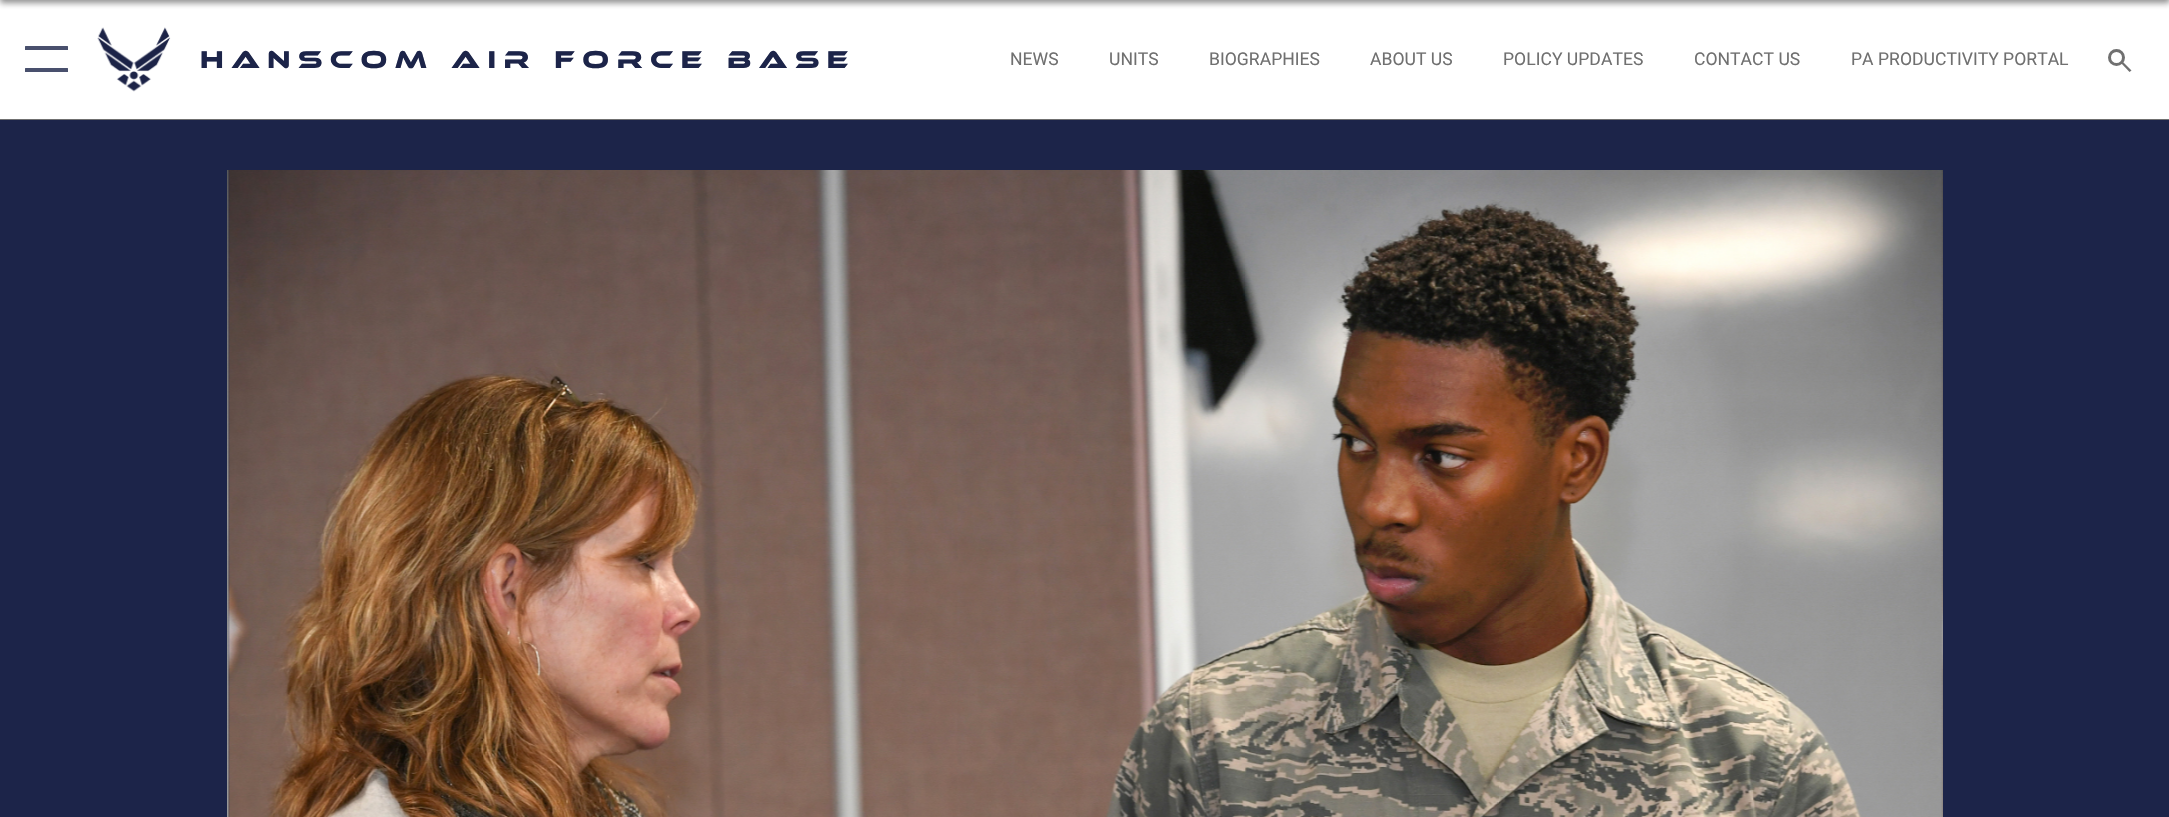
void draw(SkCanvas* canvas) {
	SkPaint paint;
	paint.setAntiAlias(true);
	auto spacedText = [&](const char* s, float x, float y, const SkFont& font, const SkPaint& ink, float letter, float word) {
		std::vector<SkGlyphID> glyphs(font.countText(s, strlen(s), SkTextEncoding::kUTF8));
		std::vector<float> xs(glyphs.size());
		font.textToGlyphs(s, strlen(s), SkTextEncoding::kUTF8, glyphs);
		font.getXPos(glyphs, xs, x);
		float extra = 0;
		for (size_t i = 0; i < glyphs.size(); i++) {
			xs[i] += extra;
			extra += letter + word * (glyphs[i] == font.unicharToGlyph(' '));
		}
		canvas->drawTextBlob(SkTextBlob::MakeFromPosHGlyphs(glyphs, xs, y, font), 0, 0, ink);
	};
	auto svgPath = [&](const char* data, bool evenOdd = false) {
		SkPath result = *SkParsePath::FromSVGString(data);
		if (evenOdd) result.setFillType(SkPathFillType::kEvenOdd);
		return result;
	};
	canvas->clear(0xffffffff);
	paint.setColor(0x801a1a1a);
	paint.setMaskFilter(SkMaskFilter::MakeBlur(kNormal_SkBlurStyle, 3));
	canvas->drawRect(SkRect::MakeXYWH(0, -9, 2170, 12), paint);
	paint.setMaskFilter(nullptr);
	paint.setColor(0xff707070);
	canvas->drawRect(SkRect::MakeXYWH(0, 119, 2169, 1), paint);
	paint.setColor(0xff49506d);
	canvas->drawRoundRect(SkRect::MakeXYWH(25, 46, 43, 4), 0.5, 0.5, paint);
	canvas->drawRoundRect(SkRect::MakeXYWH(25, 68, 43, 4), 0.5, 0.5, paint);
	canvas->drawImageRect(SkImages::DeferredFromEncodedData(SkData::MakeFromFileName("img1.png")), SkRect::MakeXYWH(97, 27, 74, 65), SkSamplingOptions());
	SkFont f1(fontMgr->matchFamilyStyle("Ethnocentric", SkFontStyle::Normal()), 25.2);
	f1.setSubpixel(true);
	paint.setColor(0xff1c2449);
	spacedText("Hanscom Air Force Base", 200, 68, f1, paint, 7.55, 0);
	SkFont f2(fontMgr->matchFamilyStyle("Roboto", SkFontStyle::Normal()), 17.6);
	f2.setSubpixel(true);
	paint.setColor(0xff707070);
	canvas->drawString("NEWS", 1010, 65, f2, paint);
	canvas->drawString("UNITS", 1109, 65, f2, paint);
	canvas->drawString("BIOGRAPHIES", 1209, 65, f2, paint);
	canvas->drawString("ABOUT US", 1370, 65, f2, paint);
	canvas->drawString("POLICY UPDATES", 1503, 65, f2, paint);
	canvas->drawString("CONTACT US", 1694, 65, f2, paint);
	canvas->drawString("PA PRODUCTIVITY PORTAL", 1851, 65, f2, paint);
	paint.setStroke(true);
	paint.setStrokeWidth(3);
	canvas->drawCircle(2116.5, 57.5, 7, paint);
	paint.setStroke(false);
	canvas->drawPath(svgPath("M2122.5 61.5L2131.5 70.5L2129.5 72L2121 63Z"), paint);
	paint.setColor(0xff1c2449);
	canvas->drawRect(SkRect::MakeXYWH(0, 120, 2169, 697), paint);
	canvas->drawImageRect(SkImages::DeferredFromEncodedData(SkData::MakeFromFileName("img2.png")), SkRect::MakeXYWH(227, 170, 2, 647), SkSamplingOptions());
	canvas->drawImageRect(SkImages::DeferredFromEncodedData(SkData::MakeFromFileName("img3.png")), SkRect::MakeXYWH(228, 170, 1715, 647), SkSamplingOptions());
	canvas->drawImageRect(SkImages::DeferredFromEncodedData(SkData::MakeFromFileName("img4.png")), SkRect::MakeXYWH(1941, 170, 2, 647), SkSamplingOptions());
}
